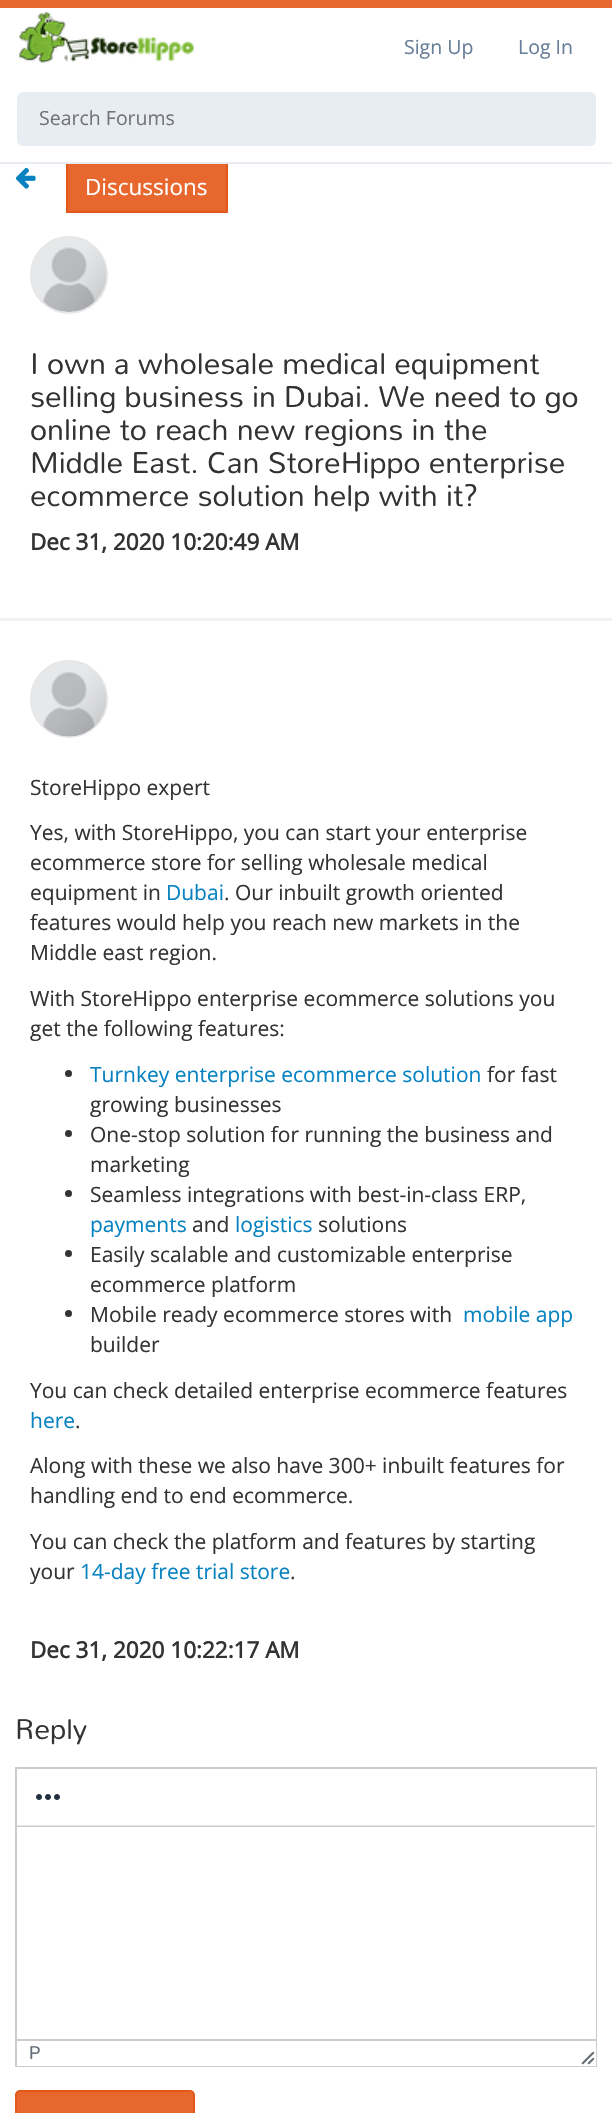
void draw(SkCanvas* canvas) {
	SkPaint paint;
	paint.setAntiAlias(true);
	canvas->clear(0xffffffff);
	paint.setColor(0xffe7672e);
	canvas->drawRect(SkRect::MakeXYWH(0, 0, 612, 8), paint);
	canvas->drawRect(SkRect::MakeXYWH(68, 164, 158, 47), paint);
	paint.setStroke(true);
	paint.setStrokeWidth(2);
	paint.setColor(0xffe2571a);
	canvas->drawRect(SkRect::MakeXYWH(67, 162, 160, 50), paint);
	paint.setStroke(false);
	paint.setColor(0xffffffff);
	canvas->drawRect(SkRect::MakeXYWH(66, 161, 162, 1), paint);
	paint.setColor(0xffe7edf3);
	canvas->drawRect(SkRect::MakeXYWH(0, 162, 612, 2), paint);
	canvas->drawImageRect(SkImages::DeferredFromEncodedData(SkData::MakeFromFileName("img1.png")), SkRect::MakeXYWH(19, 12, 176, 51), SkSamplingOptions());
	SkFont f1(fontMgr->matchFamilyStyle("Open Sans", SkFontStyle::Normal()), 19.5);
	f1.setSubpixel(true);
	paint.setColor(0xff667d99);
	canvas->drawString("Sign Up", 404, 54, f1, paint);
	canvas->drawString("Log In", 518, 54, f1, paint);
	paint.setColor(0xffe7edf3);
	canvas->drawRoundRect(SkRect::MakeXYWH(17, 92, 579, 54), 6, 6, paint);
	paint.setColor(0xff757575);
	canvas->drawString("Search Forums", 39, 125, f1, paint);
	canvas->drawImageRect(SkImages::DeferredFromEncodedData(SkData::MakeFromFileName("img2.png")), SkRect::MakeXYWH(15, 167, 21, 22), SkSamplingOptions());
	SkFont f2(fontMgr->matchFamilyStyle("Open Sans", SkFontStyle::Normal()), 22.5);
	f2.setSubpixel(true);
	paint.setColor(0xffffffff);
	canvas->drawString("Discussions", 85, 195, f2, paint);
	paint.setStroke(true);
	paint.setColor(0xffe6e6e6);
	canvas->drawCircle(69, 275, 38, paint);
	canvas->drawImageRect(SkImages::DeferredFromEncodedData(SkData::MakeFromFileName("img3.png")), SkRect::MakeXYWH(32, 238, 75, 74), SkSamplingOptions());
	SkFont f3(fontMgr->matchFamilyStyle("Mandali", SkFontStyle::Normal()), 30);
	f3.setSubpixel(true);
	paint.setStroke(false);
	paint.setColor(0xff333333);
	canvas->drawString("I own a wholesale medical equipment", 30, 374, f3, paint);
	canvas->drawString("selling business in Dubai. We need to go", 30, 407, f3, paint);
	canvas->drawString("online to reach new regions in the", 30, 440, f3, paint);
	canvas->drawString("Middle East. Can StoreHippo enterprise", 30, 473, f3, paint);
	canvas->drawString("ecommerce solution help with it?", 30, 506, f3, paint);
	SkFont f4(fontMgr->matchFamilyStyle("Open Sans", SkFontStyle::Bold()), 22.5);
	f4.setSubpixel(true);
	canvas->drawString("Dec 31, 2020 10:20:49 AM", 30, 550, f4, paint);
	paint.setColor(0xfff1f1f1);
	canvas->drawRect(SkRect::MakeXYWH(0, 618, 612, 3), paint);
	paint.setStroke(true);
	paint.setColor(0xffe6e6e6);
	canvas->drawCircle(69, 699, 38, paint);
	canvas->drawImageRect(SkImages::DeferredFromEncodedData(SkData::MakeFromFileName("img4.png")), SkRect::MakeXYWH(32, 662, 75, 75), SkSamplingOptions());
	SkFont f5(fontMgr->matchFamilyStyle("Open Sans", SkFontStyle::Normal()), 21);
	f5.setSubpixel(true);
	paint.setStroke(false);
	paint.setColor(0xff333333);
	canvas->drawString("StoreHippo expert", 30, 795, f5, paint);
	canvas->drawString("Yes, with StoreHippo, you can start your enterprise", 30, 840, f5, paint);
	canvas->drawString("ecommerce store for selling wholesale medical", 30, 870, f5, paint);
	canvas->drawString("equipment in", 30, 900, f5, paint);
	paint.setColor(0xff0782c1);
	canvas->drawString("Dubai", 166, 900, f5, paint);
	paint.setColor(0xff333333);
	canvas->drawString(". Our inbuilt growth oriented", 224, 900, f5, paint);
	canvas->drawString("features would help you reach new markets in the", 30, 930, f5, paint);
	canvas->drawString("Middle east region.", 30, 960, f5, paint);
	canvas->drawString("With StoreHippo enterprise ecommerce solutions you", 30, 1006, f5, paint);
	canvas->drawString("get the following features:", 30, 1036, f5, paint);
	canvas->drawCircle(68.5, 1073.5, 3.5, paint);
	paint.setColor(0xff0782c1);
	canvas->drawString("Turnkey enterprise ecommerce solution", 90, 1082, f5, paint);
	paint.setColor(0xff333333);
	canvas->drawString("for fast", 487, 1082, f5, paint);
	canvas->drawString("growing businesses", 90, 1112, f5, paint);
	canvas->drawCircle(68.5, 1133.5, 3.5, paint);
	canvas->drawString("One-stop solution for running the business and", 90, 1142, f5, paint);
	canvas->drawString("marketing", 90, 1172, f5, paint);
	canvas->drawCircle(68.5, 1193.5, 3.5, paint);
	canvas->drawString("Seamless integrations with best-in-class ERP,", 90, 1202, f5, paint);
	paint.setColor(0xff0782c1);
	canvas->drawString("payments", 90, 1232, f5, paint);
	paint.setColor(0xff333333);
	canvas->drawString("and", 192, 1232, f5, paint);
	paint.setColor(0xff0782c1);
	canvas->drawString("logistics", 235, 1232, f5, paint);
	paint.setColor(0xff333333);
	canvas->drawString("solutions", 318, 1232, f5, paint);
	canvas->drawCircle(68.5, 1253.5, 3.5, paint);
	canvas->drawString("Easily scalable and customizable enterprise", 90, 1262, f5, paint);
	canvas->drawString("ecommerce platform", 90, 1292, f5, paint);
	canvas->drawCircle(68.5, 1313.5, 3.5, paint);
	canvas->drawString("Mobile ready ecommerce stores with", 90, 1322, f5, paint);
	paint.setColor(0xff0782c1);
	canvas->drawString("mobile app", 463, 1322, f5, paint);
	paint.setColor(0xff333333);
	canvas->drawString("builder", 90, 1352, f5, paint);
	canvas->drawString("You can check detailed enterprise ecommerce features", 30, 1398, f5, paint);
	paint.setColor(0xff0782c1);
	canvas->drawString("here", 30, 1428, f5, paint);
	paint.setColor(0xff333333);
	canvas->drawString(".", 75, 1428, f5, paint);
	canvas->drawString("Along with these we also have 300+ inbuilt features for", 30, 1473, f5, paint);
	canvas->drawString("handling end to end ecommerce.", 30, 1503, f5, paint);
	canvas->drawString("You can check the platform and features by starting", 30, 1549, f5, paint);
	canvas->drawString("your", 30, 1579, f5, paint);
	paint.setColor(0xff0782c1);
	canvas->drawString("14-day free trial store", 80, 1579, f5, paint);
	paint.setColor(0xff333333);
	canvas->drawString(".", 290, 1579, f5, paint);
	canvas->drawString("Dec 31, 2020 10:22:17 AM", 30, 1658, f4, paint);
	SkFont f6(fontMgr->matchFamilyStyle("Mandali", SkFontStyle::Normal()), 28.5);
	f6.setSubpixel(true);
	canvas->drawString("Reply", 15, 1739, f6, paint);
	paint.setStroke(true);
	paint.setColor(0xffcccccc);
	canvas->drawRect(SkRect::MakeXYWH(16, 1768, 580, 298), paint);
	paint.setStroke(false);
	paint.setColor(0xffffffff);
	canvas->drawRect(SkRect::MakeXYWH(595, 1769, 1, 270), paint);
	canvas->drawImageRect(SkImages::DeferredFromEncodedData(SkData::MakeFromFileName("img5.png")), SkRect::MakeXYWH(17, 1825, 579, 2), SkSamplingOptions());
	canvas->drawImageRect(SkImages::DeferredFromEncodedData(SkData::MakeFromFileName("img6.png")), SkRect::MakeXYWH(36, 1794, 24, 6), SkSamplingOptions());
	canvas->drawRect(SkRect::MakeXYWH(17, 2041, 579, 25), paint);
	paint.setColor(0xffcccccc);
	canvas->drawRect(SkRect::MakeXYWH(17, 2039, 579, 2), paint);
	SkFont f7(fontMgr->matchFamilyStyle("Roboto", SkFontStyle::Normal()), 18);
	f7.setSubpixel(true);
	paint.setColor(0xff646d78);
	canvas->drawString("P", 29, 2059, f7, paint);
	canvas->drawImageRect(SkImages::DeferredFromEncodedData(SkData::MakeFromFileName("img7.png")), SkRect::MakeXYWH(581, 2051, 14, 14), SkSamplingOptions());
	paint.setColor(0xffe7672e);
	canvas->drawRoundRect(SkRect::MakeXYWH(16, 2091, 178, 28), 4, 4, paint);
	paint.setStroke(true);
	paint.setColor(0xffe2571a);
	canvas->drawRoundRect(SkRect::MakeXYWH(16, 2091, 178, 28), 4, 4, paint);
}
